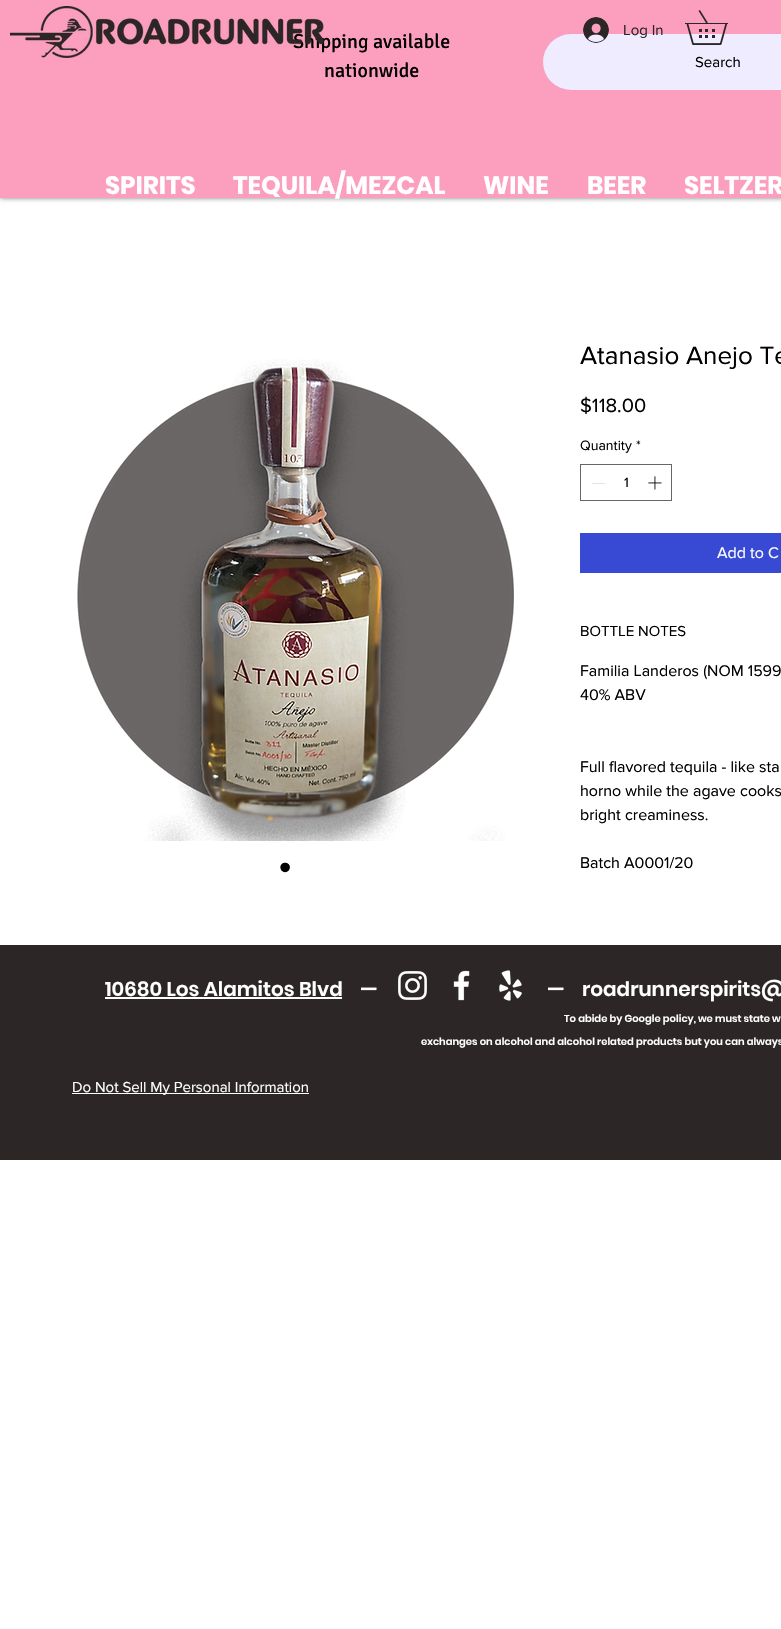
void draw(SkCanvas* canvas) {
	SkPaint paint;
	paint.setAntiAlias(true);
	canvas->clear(0xffffffff);
	paint.setColor(0x80000000);
	paint.setMaskFilter(SkMaskFilter::MakeBlur(kNormal_SkBlurStyle, 2.5));
	canvas->drawRect(SkRect::MakeXYWH(0, 0, 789, 198), paint);
	paint.setMaskFilter(nullptr);
	paint.setColor(0xfffc9fbf);
	canvas->drawRect(SkRect::MakeXYWH(0, 0, 781, 198), paint);
	SkFont f1(fontMgr->matchFamilyStyle("Signika", SkFontStyle::Normal()), 20);
	f1.setSubpixel(true);
	paint.setColor(0xff000000);
	canvas->drawString("Shipping available", 293, 48, f1, paint);
	canvas->drawImageRect(SkImages::DeferredFromEncodedData(SkData::MakeFromFileName("img1.png")), SkRect::MakeXYWH(10, 6, 315, 52), SkSamplingOptions());
	paint.setColor(0xffeeecfe);
	canvas->drawRoundRect(SkRect::MakeXYWH(543, 34, 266, 56), 28, 28, paint);
	canvas->drawImageRect(SkImages::DeferredFromEncodedData(SkData::MakeFromFileName("img2.png")), SkRect::MakeXYWH(583, 17, 26, 26), SkSamplingOptions());
	SkFont f2(fontMgr->matchFamilyStyle("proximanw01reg", SkFontStyle::Normal()), 15);
	f2.setSubpixel(true);
	paint.setColor(0xff2c2626);
	canvas->drawString("Log In", 623, 35, f2, paint);
	canvas->drawImageRect(SkImages::DeferredFromEncodedData(SkData::MakeFromFileName("img3.png")), SkRect::MakeXYWH(685, 10, 43, 35), SkSamplingOptions());
	paint.setColor(0xff000000);
	canvas->drawString("nationwide", 324, 77, f1, paint);
	canvas->drawString("Search", 695, 67, f2, paint);
	SkFont f3(fontMgr->matchFamilyStyle("Poppins", SkFontStyle::Bold()), 25);
	f3.setSubpixel(true);
	paint.setColor(0xffffffff);
	canvas->drawString("SPIRITS", 105, 194, f3, paint);
	canvas->drawString("TEQUILA/MEZCAL", 233, 194, f3, paint);
	canvas->drawString("WINE", 483, 194, f3, paint);
	canvas->drawString("BEER", 587, 194, f3, paint);
	canvas->drawString("SELTZER", 684, 194, f3, paint);
	canvas->drawImageRect(SkImages::DeferredFromEncodedData(SkData::MakeFromFileName("img4.png")), SkRect::MakeXYWH(77, 359, 437, 482), SkSamplingOptions());
	SkFont f4(fontMgr->matchFamilyStyle("Liberation Sans", SkFontStyle::Normal()), 35);
	f4.setSubpixel(true);
	paint.setColor(0xff000000);
	canvas->drawString("•", 279, 879, f4, paint);
	SkFont f5(fontMgr->matchFamilyStyle("proximanw01reg", SkFontStyle::Normal()), 26);
	f5.setSubpixel(true);
	canvas->drawString("Atanasio Anejo Te", 580, 364, f5, paint);
	SkFont f6(fontMgr->matchFamilyStyle("proximanw01reg", SkFontStyle::Normal()), 20);
	f6.setSubpixel(true);
	canvas->drawString("$118.00", 580, 412, f6, paint);
	SkFont f7(fontMgr->matchFamilyStyle("proximanw01reg", SkFontStyle::Normal()), 14);
	f7.setSubpixel(true);
	canvas->drawString("Quantity", 580, 450, f7, paint);
	canvas->drawString("*", 636, 450, f7, paint);
	paint.setStroke(true);
	paint.setStrokeWidth(1);
	paint.setColor(0xff666666);
	canvas->drawRect(SkRect::MakeXYWH(580.5, 464.5, 91, 36), paint);
	paint.setStroke(false);
	paint.setColor(0xffe3e3e3);
	canvas->drawRect(SkRect::MakeXYWH(592, 483, 13, 1), paint);
	paint.setColor(0xff000000);
	canvas->drawString("1", 624, 487, f7, paint);
	canvas->drawImageRect(SkImages::DeferredFromEncodedData(SkData::MakeFromFileName("img5.png")), SkRect::MakeXYWH(648, 476, 14, 14), SkSamplingOptions());
	paint.setColor(0xff384ad3);
	canvas->drawRect(SkRect::MakeXYWH(580, 533, 201, 40), paint);
	SkFont f8(fontMgr->matchFamilyStyle("proximanw01reg", SkFontStyle::Normal()), 16);
	f8.setSubpixel(true);
	paint.setColor(0xffffffff);
	canvas->drawString("Add to C", 717, 558, f8, paint);
	paint.setColor(0xff000000);
	canvas->drawString("BOTTLE NOTES", 580, 636, f2, paint);
	canvas->drawString("Familia Landeros (NOM 1599", 580, 676, f8, paint);
	canvas->drawString("40% ABV", 580, 700, f8, paint);
	canvas->drawString("Full flavored tequila - like sta", 580, 772, f8, paint);
	canvas->drawString("horno while the agave cooks", 580, 796, f8, paint);
	canvas->drawString("bright creaminess.", 580, 820, f8, paint);
	canvas->drawString("Batch A0001/20", 580, 868, f8, paint);
	paint.setColor(0xff2c2626);
	canvas->drawRect(SkRect::MakeXYWH(0, 945, 781, 215), paint);
	canvas->drawImageRect(SkImages::DeferredFromEncodedData(SkData::MakeFromFileName("img6.png")), SkRect::MakeXYWH(398, 971, 29, 29), SkSamplingOptions());
	canvas->drawImageRect(SkImages::DeferredFromEncodedData(SkData::MakeFromFileName("img7.png")), SkRect::MakeXYWH(453, 970, 17, 31), SkSamplingOptions());
	canvas->drawImageRect(SkImages::DeferredFromEncodedData(SkData::MakeFromFileName("img8.png")), SkRect::MakeXYWH(499, 970, 23, 31), SkSamplingOptions());
	SkFont f9(fontMgr->matchFamilyStyle("Poppins", SkFontStyle(600, SkFontStyle::kNormal_Width, SkFontStyle::kUpright_Slant)), 20);
	f9.setSubpixel(true);
	paint.setColor(0xffffffff);
	canvas->drawString("10680 Los Alamitos Blvd", 105, 996, f9, paint);
	paint.setColor(0xfffffffe);
	canvas->drawRect(SkRect::MakeXYWH(105, 997, 237, 2), paint);
	paint.setColor(0xffffffff);
	canvas->drawString("—", 360, 996, f9, paint);
	canvas->drawString("—", 547, 996, f9, paint);
	canvas->drawString("roadrunnerspirits@", 582, 996, f9, paint);
	SkFont f10(fontMgr->matchFamilyStyle("Poppins", SkFontStyle(600, SkFontStyle::kNormal_Width, SkFontStyle::kUpright_Slant)), 10);
	f10.setSubpixel(true);
	canvas->drawString("To abide by Google policy, we must state w", 564, 1022, f10, paint);
	canvas->drawString("exchanges on alcohol and alcohol related products but you can always", 421, 1045, f10, paint);
	paint.setColor(0xfffffffe);
	canvas->drawRect(SkRect::MakeXYWH(72, 1093, 237, 1), paint);
	paint.setColor(0xffffffff);
	canvas->drawString("Do Not Sell My Personal Information", 72, 1092, f2, paint);
}
